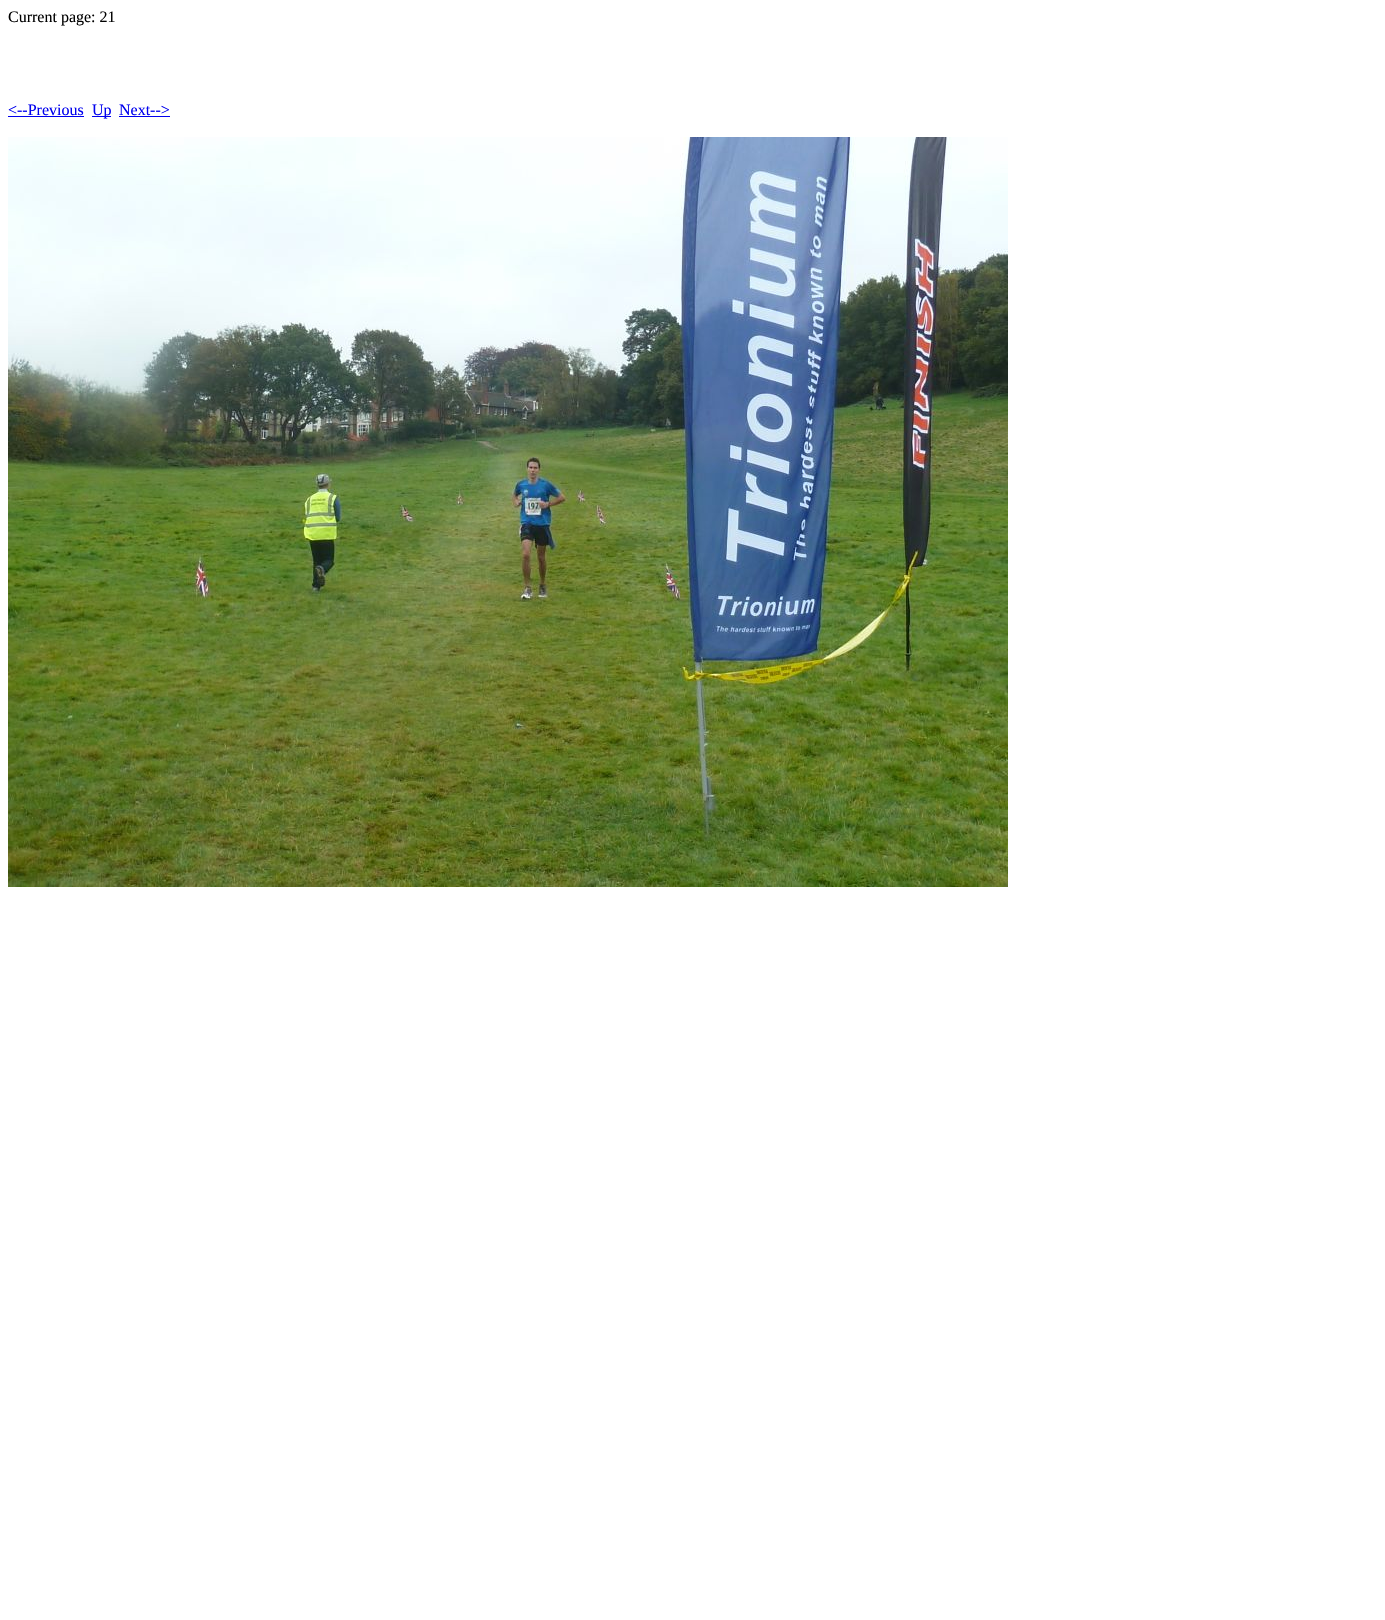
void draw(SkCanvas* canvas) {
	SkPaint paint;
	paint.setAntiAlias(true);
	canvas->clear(0xffffffff);
	SkFont f1(fontMgr->matchFamilyStyle("Liberation Serif", SkFontStyle::Normal()), 16);
	f1.setSubpixel(true);
	paint.setColor(0xff000000);
	canvas->drawString("Current page: 21", 8, 22, f1, paint);
	paint.setColor(0xff0000ee);
	canvas->drawString("<--Previous", 8, 115, f1, paint);
	canvas->drawRect(SkRect::MakeXYWH(8, 116, 76, 1), paint);
	canvas->drawRect(SkRect::MakeXYWH(92, 116, 19, 1), paint);
	canvas->drawString("Up", 92, 115, f1, paint);
	canvas->drawString("Next-->", 119, 115, f1, paint);
	canvas->drawRect(SkRect::MakeXYWH(119, 116, 51, 1), paint);
	canvas->drawImageRect(SkImages::DeferredFromEncodedData(SkData::MakeFromFileName("img1.png")), SkRect::MakeXYWH(8, 137, 1000, 750), SkSamplingOptions());
}
